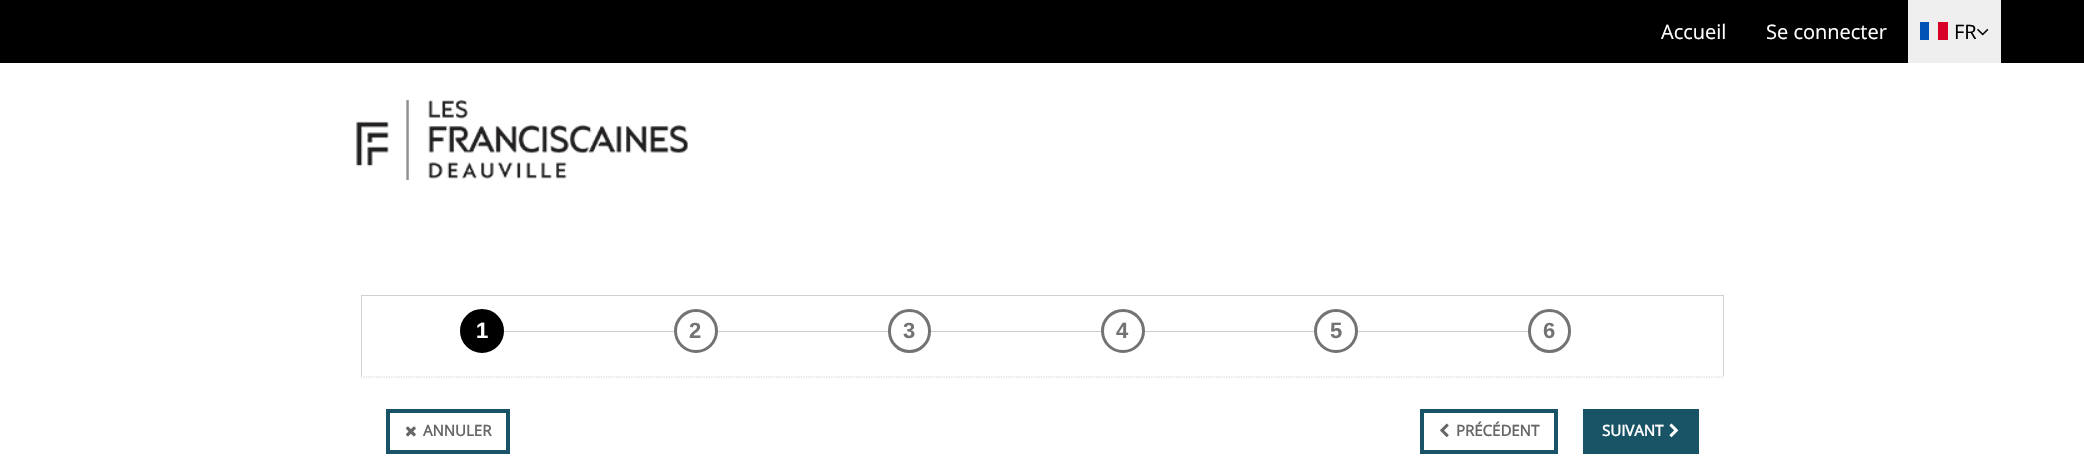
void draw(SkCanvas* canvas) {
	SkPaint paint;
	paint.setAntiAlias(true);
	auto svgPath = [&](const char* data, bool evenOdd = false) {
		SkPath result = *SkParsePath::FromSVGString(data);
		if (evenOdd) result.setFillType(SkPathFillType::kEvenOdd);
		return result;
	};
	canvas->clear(0xffffffff);
	paint.setColor(0xff000000);
	canvas->drawRect(SkRect::MakeXYWH(0, 0, 2084, 63), paint);
	SkFont f1(fontMgr->matchFamilyStyle("Open Sans", SkFontStyle::Normal()), 20);
	f1.setSubpixel(true);
	paint.setColor(0xffffffff);
	canvas->drawString("Accueil", 1661, 39, f1, paint);
	canvas->drawString("Se connecter", 1766, 39, f1, paint);
	paint.setColor(0xffefefef);
	canvas->drawRect(SkRect::MakeXYWH(1908, 0, 93, 63), paint);
	paint.setColor(0xff0052b4);
	canvas->drawRect(SkRect::MakeXYWH(1920, 22, 9, 18), paint);
	paint.setColor(0xffd80027);
	canvas->drawRect(SkRect::MakeXYWH(1938, 22, 10, 18), paint);
	paint.setColor(0xff000000);
	canvas->drawString("FR", 1954, 39, f1, paint);
	canvas->drawImageRect(SkImages::DeferredFromEncodedData(SkData::MakeFromFileName("img1.png")), SkRect::MakeXYWH(1977, 28, 12, 8), SkSamplingOptions());
	canvas->drawImageRect(SkImages::DeferredFromEncodedData(SkData::MakeFromFileName("img2.png")), SkRect::MakeXYWH(356, 100, 332, 80), SkSamplingOptions());
	paint.setStroke(true);
	paint.setStrokeWidth(1);
	paint.setColor(0xffd0d0d0);
	canvas->drawRect(SkRect::MakeXYWH(361.5, 295.5, 1362, 128), paint);
	paint.setStroke(false);
	paint.setColor(0xffcccccc);
	canvas->drawRect(SkRect::MakeXYWH(503, 331, 172, 1), paint);
	paint.setColor(0xff000000);
	canvas->drawCircle(482, 331, 20.5, paint);
	paint.setStroke(true);
	paint.setStrokeWidth(3);
	canvas->drawCircle(482, 331, 20.5, paint);
	SkFont f2(fontMgr->matchFamilyStyle("Liberation Sans", SkFontStyle::Bold()), 22);
	f2.setSubpixel(true);
	paint.setStroke(false);
	paint.setColor(0xffffffff);
	canvas->drawString("1", 476, 338, f2, paint);
	paint.setColor(0xffcccccc);
	canvas->drawRect(SkRect::MakeXYWH(717, 331, 172, 1), paint);
	paint.setColor(0xffffffff);
	canvas->drawCircle(696, 331, 20.5, paint);
	paint.setStroke(true);
	paint.setColor(0xff737373);
	canvas->drawCircle(696, 331, 20.5, paint);
	paint.setStroke(false);
	canvas->drawString("2", 689, 338, f2, paint);
	paint.setColor(0xffcccccc);
	canvas->drawRect(SkRect::MakeXYWH(930, 331, 172, 1), paint);
	paint.setColor(0xffffffff);
	canvas->drawRoundRect(SkRect::MakeXYWH(889.5, 310.5, 40, 41), 20, 20, paint);
	paint.setStroke(true);
	paint.setColor(0xff737373);
	canvas->drawRoundRect(SkRect::MakeXYWH(889.5, 310.5, 40, 41), 20, 20, paint);
	paint.setStroke(false);
	canvas->drawString("3", 903, 338, f2, paint);
	paint.setColor(0xffcccccc);
	canvas->drawRect(SkRect::MakeXYWH(1144, 331, 171, 1), paint);
	paint.setColor(0xffffffff);
	canvas->drawCircle(1123, 331, 20.5, paint);
	paint.setStroke(true);
	paint.setColor(0xff737373);
	canvas->drawCircle(1123, 331, 20.5, paint);
	paint.setStroke(false);
	canvas->drawString("4", 1116, 338, f2, paint);
	paint.setColor(0xffcccccc);
	canvas->drawRect(SkRect::MakeXYWH(1357, 331, 172, 1), paint);
	paint.setColor(0xffffffff);
	canvas->drawCircle(1336, 331, 20.5, paint);
	paint.setStroke(true);
	paint.setColor(0xff737373);
	canvas->drawCircle(1336, 331, 20.5, paint);
	paint.setStroke(false);
	canvas->drawString("5", 1330, 338, f2, paint);
	paint.setColor(0xffffffff);
	canvas->drawRoundRect(SkRect::MakeXYWH(1529.5, 310.5, 40, 41), 20, 20, paint);
	paint.setStroke(true);
	paint.setColor(0xff737373);
	canvas->drawRoundRect(SkRect::MakeXYWH(1529.5, 310.5, 40, 41), 20, 20, paint);
	paint.setStroke(false);
	canvas->drawString("6", 1543, 338, f2, paint);
	paint.setColor(0xffffffff);
	canvas->drawRect(SkRect::MakeXYWH(361, 376, 1363, 48), paint);
	paint.setStroke(true);
	paint.setStrokeWidth(1.2);
	paint.setColor(0xffd0d0d0);
	paint.setPathEffect(SkDashPathEffect::Make({{1.25f, 1.25f}}, 0));
	canvas->drawPath(svgPath("M361 377H1724"), paint);
	paint.setPathEffect(nullptr);
	paint.setStrokeWidth(4);
	paint.setColor(0xff185366);
	canvas->drawRect(SkRect::MakeXYWH(388, 411, 120, 41), paint);
	canvas->drawImageRect(SkImages::DeferredFromEncodedData(SkData::MakeFromFileName("img3.png")), SkRect::MakeXYWH(406, 426, 10, 11), SkSamplingOptions());
	SkFont f3(fontMgr->matchFamilyStyle("Open Sans", SkFontStyle::Bold()), 15);
	f3.setSubpixel(true);
	paint.setStroke(false);
	paint.setColor(0xff666666);
	canvas->drawString("ANNULER", 423, 436, f3, paint);
	paint.setStroke(true);
	paint.setColor(0xff185366);
	canvas->drawRect(SkRect::MakeXYWH(1422, 411, 134, 41), paint);
	canvas->drawImageRect(SkImages::DeferredFromEncodedData(SkData::MakeFromFileName("img4.png")), SkRect::MakeXYWH(1440, 423, 9, 14), SkSamplingOptions());
	paint.setStroke(false);
	paint.setColor(0xff666666);
	canvas->drawString("PRÉCÉDENT", 1456, 436, f3, paint);
	paint.setColor(0xff185366);
	canvas->drawRect(SkRect::MakeXYWH(1583, 409, 116, 45), paint);
	paint.setColor(0xffffffff);
	canvas->drawString("SUIVANT", 1602, 436, f3, paint);
	canvas->drawImageRect(SkImages::DeferredFromEncodedData(SkData::MakeFromFileName("img5.png")), SkRect::MakeXYWH(1669, 423, 10, 15), SkSamplingOptions());
}
